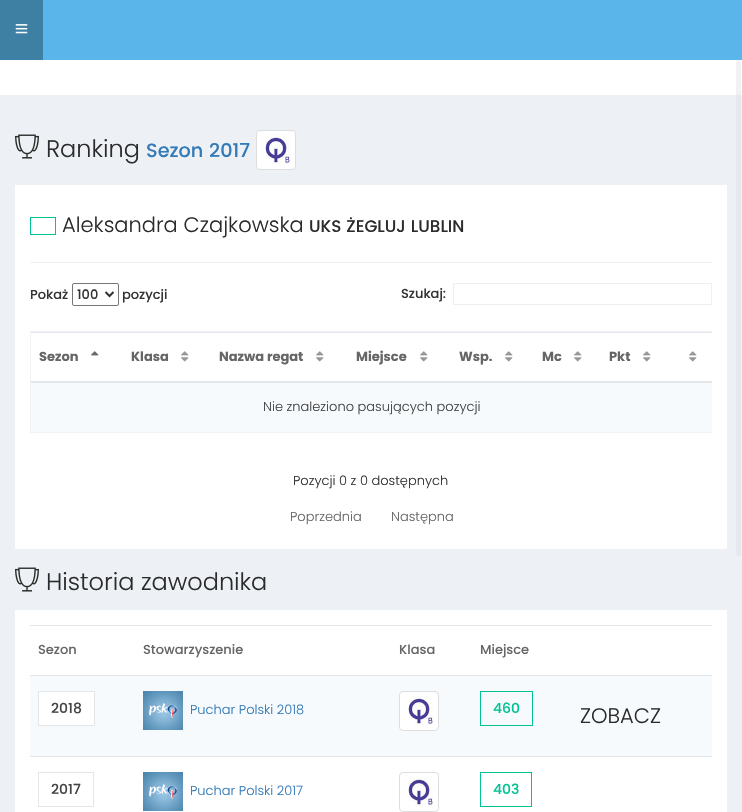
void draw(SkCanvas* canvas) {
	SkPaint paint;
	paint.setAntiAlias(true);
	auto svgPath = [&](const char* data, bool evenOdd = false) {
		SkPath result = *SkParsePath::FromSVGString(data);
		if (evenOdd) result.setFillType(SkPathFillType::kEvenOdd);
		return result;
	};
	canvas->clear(0xffedf1f5);
	paint.setColor(0xff59b5ea);
	canvas->drawRect(SkRect::MakeXYWH(43, 0, 699, 60), paint);
	paint.setColor(0xff3e7fa4);
	canvas->drawRect(SkRect::MakeXYWH(0, 0, 43, 60), paint);
	canvas->drawImageRect(SkImages::DeferredFromEncodedData(SkData::MakeFromFileName("img1.png")), SkRect::MakeXYWH(15, 24, 13, 10), SkSamplingOptions());
	paint.setColor(0xffffffff);
	canvas->drawRect(SkRect::MakeXYWH(0, 60, 742, 35), paint);
	canvas->drawImageRect(SkImages::DeferredFromEncodedData(SkData::MakeFromFileName("img2.png")), SkRect::MakeXYWH(15, 134, 24, 25), SkSamplingOptions());
	SkFont f1(fontMgr->matchFamilyStyle("Poppins", SkFontStyle(300, SkFontStyle::kNormal_Width, SkFontStyle::kUpright_Slant)), 24);
	f1.setSubpixel(true);
	paint.setColor(0xff2b2b2b);
	canvas->drawString("Ranking", 46, 157, f1, paint);
	SkFont f2(fontMgr->matchFamilyStyle("Poppins", SkFontStyle(500, SkFontStyle::kNormal_Width, SkFontStyle::kUpright_Slant)), 19.25);
	f2.setSubpixel(true);
	paint.setColor(0xff337ab7);
	canvas->drawString("Sezon 2017", 146, 157, f2, paint);
	paint.setColor(0xffffffff);
	canvas->drawRoundRect(SkRect::MakeXYWH(256.5, 130.5, 39, 39), 3.5, 3.5, paint);
	paint.setStroke(true);
	paint.setStrokeWidth(1);
	paint.setColor(0xffdddddd);
	canvas->drawRoundRect(SkRect::MakeXYWH(256.5, 130.5, 39, 39), 3.5, 3.5, paint);
	canvas->drawImageRect(SkImages::DeferredFromEncodedData(SkData::MakeFromFileName("img3.png")), SkRect::MakeXYWH(265, 135, 25, 29), SkSamplingOptions());
	paint.setStroke(false);
	paint.setColor(0xffffffff);
	canvas->drawRect(SkRect::MakeXYWH(15, 185, 712, 364), paint);
	paint.setStroke(true);
	paint.setColor(0xff00c292);
	canvas->drawRect(SkRect::MakeXYWH(30.5, 217.5, 25, 17), paint);
	SkFont f3(fontMgr->matchFamilyStyle("Poppins", SkFontStyle(300, SkFontStyle::kNormal_Width, SkFontStyle::kUpright_Slant)), 21);
	f3.setSubpixel(true);
	paint.setStroke(false);
	paint.setColor(0xff2b2b2b);
	canvas->drawString("Aleksandra Czajkowska", 62, 232, f3, paint);
	SkFont f4(fontMgr->matchFamilyStyle("Poppins", SkFontStyle(500, SkFontStyle::kNormal_Width, SkFontStyle::kUpright_Slant)), 16.75);
	f4.setSubpixel(true);
	canvas->drawString("UKS ŻEGLUJ LUBLIN", 309, 232, f4, paint);
	paint.setColor(0xffedeff0);
	canvas->drawRect(SkRect::MakeXYWH(30, 262, 682, 1), paint);
	SkFont f5(fontMgr->matchFamilyStyle("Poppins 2", SkFontStyle(500, SkFontStyle::kNormal_Width, SkFontStyle::kUpright_Slant)), 13);
	f5.setSubpixel(true);
	paint.setColor(0xff333333);
	canvas->drawString("Pokaż", 30, 299, f5, paint);
	paint.setStroke(true);
	paint.setColor(0xff767676);
	canvas->drawRoundRect(SkRect::MakeXYWH(72.5, 283.5, 46, 22), 1.5, 1.5, paint);
	paint.setStrokeWidth(2);
	paint.setColor(0xff333333);
	canvas->drawPath(svgPath("M105.5 292L109.5 296L113.5 292"), paint);
	paint.setStroke(false);
	canvas->drawString("100", 77, 299, f5, paint);
	canvas->drawString("pozycji", 122, 299, f5, paint);
	canvas->drawString("Szukaj:", 401, 298, f5, paint);
	paint.setStroke(true);
	paint.setStrokeWidth(1);
	paint.setColor(0xffedeff0);
	canvas->drawRect(SkRect::MakeXYWH(453.5, 283.5, 258, 21), paint);
	canvas->save();
	canvas->clipRect(SkRect::MakeXYWH(30, 283, 682, 251));
	paint.setColor(0xfff1f2f7);
	canvas->drawRect(SkRect::MakeXYWH(30.5, 331.5, 682, 101), paint);
	canvas->restore();
	paint.setStroke(false);
	paint.setColor(0xffe4e7ea);
	canvas->drawRect(SkRect::MakeXYWH(31, 332, 681, 1), paint);
	canvas->drawRect(SkRect::MakeXYWH(31, 381, 681, 2), paint);
	SkFont f6(fontMgr->matchFamilyStyle("Poppins", SkFontStyle::Bold()), 13);
	f6.setSubpixel(true);
	paint.setColor(0xff666666);
	canvas->drawString("Sezon", 39, 361, f6, paint);
	canvas->drawImageRect(SkImages::DeferredFromEncodedData(SkData::MakeFromFileName("img4.png")), SkRect::MakeXYWH(91, 351, 8, 5), SkSamplingOptions());
	canvas->drawString("Klasa", 131, 361, f6, paint);
	canvas->drawImageRect(SkImages::DeferredFromEncodedData(SkData::MakeFromFileName("img5.png")), SkRect::MakeXYWH(181, 351, 8, 11), SkSamplingOptions());
	canvas->drawString("Nazwa regat", 219, 361, f6, paint);
	canvas->drawImageRect(SkImages::DeferredFromEncodedData(SkData::MakeFromFileName("img5.png")), SkRect::MakeXYWH(316, 351, 8, 11), SkSamplingOptions());
	canvas->drawString("Miejsce", 356, 361, f6, paint);
	canvas->drawImageRect(SkImages::DeferredFromEncodedData(SkData::MakeFromFileName("img5.png")), SkRect::MakeXYWH(420, 351, 8, 11), SkSamplingOptions());
	canvas->drawString("Wsp.", 459, 361, f6, paint);
	canvas->drawImageRect(SkImages::DeferredFromEncodedData(SkData::MakeFromFileName("img5.png")), SkRect::MakeXYWH(505, 351, 8, 11), SkSamplingOptions());
	canvas->drawString("Mc", 542, 361, f6, paint);
	canvas->drawImageRect(SkImages::DeferredFromEncodedData(SkData::MakeFromFileName("img5.png")), SkRect::MakeXYWH(574, 351, 8, 11), SkSamplingOptions());
	canvas->drawString("Pkt", 609, 361, f6, paint);
	canvas->drawImageRect(SkImages::DeferredFromEncodedData(SkData::MakeFromFileName("img5.png")), SkRect::MakeXYWH(643, 351, 8, 11), SkSamplingOptions());
	canvas->drawImageRect(SkImages::DeferredFromEncodedData(SkData::MakeFromFileName("img5.png")), SkRect::MakeXYWH(689, 351, 8, 11), SkSamplingOptions());
	paint.setColor(0xfff7fafc);
	canvas->drawRect(SkRect::MakeXYWH(31, 383, 681, 49), paint);
	SkFont f7(fontMgr->matchFamilyStyle("Poppins", SkFontStyle(300, SkFontStyle::kNormal_Width, SkFontStyle::kUpright_Slant)), 13);
	f7.setSubpixel(true);
	paint.setColor(0xff444444);
	canvas->drawString("Nie znaleziono pasujących pozycji", 263, 411, f7, paint);
	paint.setColor(0xff333333);
	canvas->drawString("Pozycji 0 z 0 dostępnych", 293, 485, f7, paint);
	paint.setColor(0xff666666);
	canvas->drawString("Poprzednia", 290, 521, f7, paint);
	canvas->drawString("Następna", 391, 521, f7, paint);
	canvas->drawImageRect(SkImages::DeferredFromEncodedData(SkData::MakeFromFileName("img2.png")), SkRect::MakeXYWH(15, 567, 24, 25), SkSamplingOptions());
	paint.setColor(0xff2b2b2b);
	canvas->drawString("Historia zawodnika", 46, 590, f1, paint);
	paint.setColor(0xffffffff);
	canvas->drawRect(SkRect::MakeXYWH(15, 610, 712, 202), paint);
	paint.setColor(0xffe4e7ea);
	canvas->drawRect(SkRect::MakeXYWH(30, 625, 682, 1), paint);
	paint.setColor(0xff666666);
	canvas->drawString("Sezon", 38, 654, f5, paint);
	canvas->drawString("Stowarzyszenie", 143, 654, f5, paint);
	canvas->drawString("Klasa", 399, 654, f5, paint);
	canvas->drawString("Miejsce", 480, 654, f5, paint);
	paint.setColor(0xfff7fafc);
	canvas->drawRect(SkRect::MakeXYWH(30, 676, 682, 80), paint);
	paint.setColor(0xffffffff);
	canvas->drawRect(SkRect::MakeXYWH(38.5, 691.5, 56, 34), paint);
	paint.setStroke(true);
	paint.setColor(0xffe4e7ea);
	canvas->drawRect(SkRect::MakeXYWH(38.5, 691.5, 56, 34), paint);
	SkFont f8(fontMgr->matchFamilyStyle("Poppins", SkFontStyle(500, SkFontStyle::kNormal_Width, SkFontStyle::kUpright_Slant)), 14);
	f8.setSubpixel(true);
	paint.setStroke(false);
	paint.setColor(0xff444444);
	canvas->drawString("2018", 51, 713, f8, paint);
	canvas->drawImageRect(SkImages::DeferredFromEncodedData(SkData::MakeFromFileName("img6.png")), SkRect::MakeXYWH(143, 691, 40, 39), SkSamplingOptions());
	paint.setColor(0xff337ab7);
	canvas->drawString("Puchar Polski 2018", 190, 714, f7, paint);
	paint.setColor(0xffffffff);
	canvas->drawRoundRect(SkRect::MakeXYWH(399.5, 691.5, 39, 39), 3.5, 3.5, paint);
	paint.setStroke(true);
	paint.setColor(0xffdddddd);
	canvas->drawRoundRect(SkRect::MakeXYWH(399.5, 691.5, 39, 39), 3.5, 3.5, paint);
	canvas->drawImageRect(SkImages::DeferredFromEncodedData(SkData::MakeFromFileName("img7.png")), SkRect::MakeXYWH(408, 696, 25, 29), SkSamplingOptions());
	paint.setColor(0xff00c292);
	canvas->drawRect(SkRect::MakeXYWH(480.5, 691.5, 52, 34), paint);
	paint.setStroke(false);
	canvas->drawString("460", 493, 713, f8, paint);
	paint.setColor(0xffe4e7ea);
	canvas->drawRect(SkRect::MakeXYWH(30, 675, 682, 1), paint);
	paint.setColor(0xff2b2b2b);
	canvas->drawString("ZOBACZ", 580, 723, f3, paint);
	paint.setColor(0xffe4e7ea);
	canvas->drawRect(SkRect::MakeXYWH(30, 756, 682, 1), paint);
	paint.setStroke(true);
	canvas->drawRect(SkRect::MakeXYWH(38.5, 772.5, 55, 34), paint);
	paint.setStroke(false);
	paint.setColor(0xff444444);
	canvas->drawString("2017", 51, 794, f8, paint);
	canvas->drawImageRect(SkImages::DeferredFromEncodedData(SkData::MakeFromFileName("img8.png")), SkRect::MakeXYWH(143, 772, 40, 39), SkSamplingOptions());
	paint.setColor(0xff337ab7);
	canvas->drawString("Puchar Polski 2017", 190, 795, f7, paint);
	paint.setStroke(true);
	paint.setColor(0xffdddddd);
	canvas->drawRoundRect(SkRect::MakeXYWH(399.5, 772.5, 39, 39), 3.5, 3.5, paint);
	canvas->drawImageRect(SkImages::DeferredFromEncodedData(SkData::MakeFromFileName("img7.png")), SkRect::MakeXYWH(408, 777, 25, 29), SkSamplingOptions());
	paint.setColor(0xff00c292);
	canvas->drawRect(SkRect::MakeXYWH(480.5, 772.5, 51, 34), paint);
	paint.setStroke(false);
	canvas->drawString("403", 493, 794, f8, paint);
	paint.setColor(0x66dcdcdc);
	canvas->drawRoundRect(SkRect::MakeXYWH(736, 60, 5, 496), 2.5, 2.5, paint);
}
